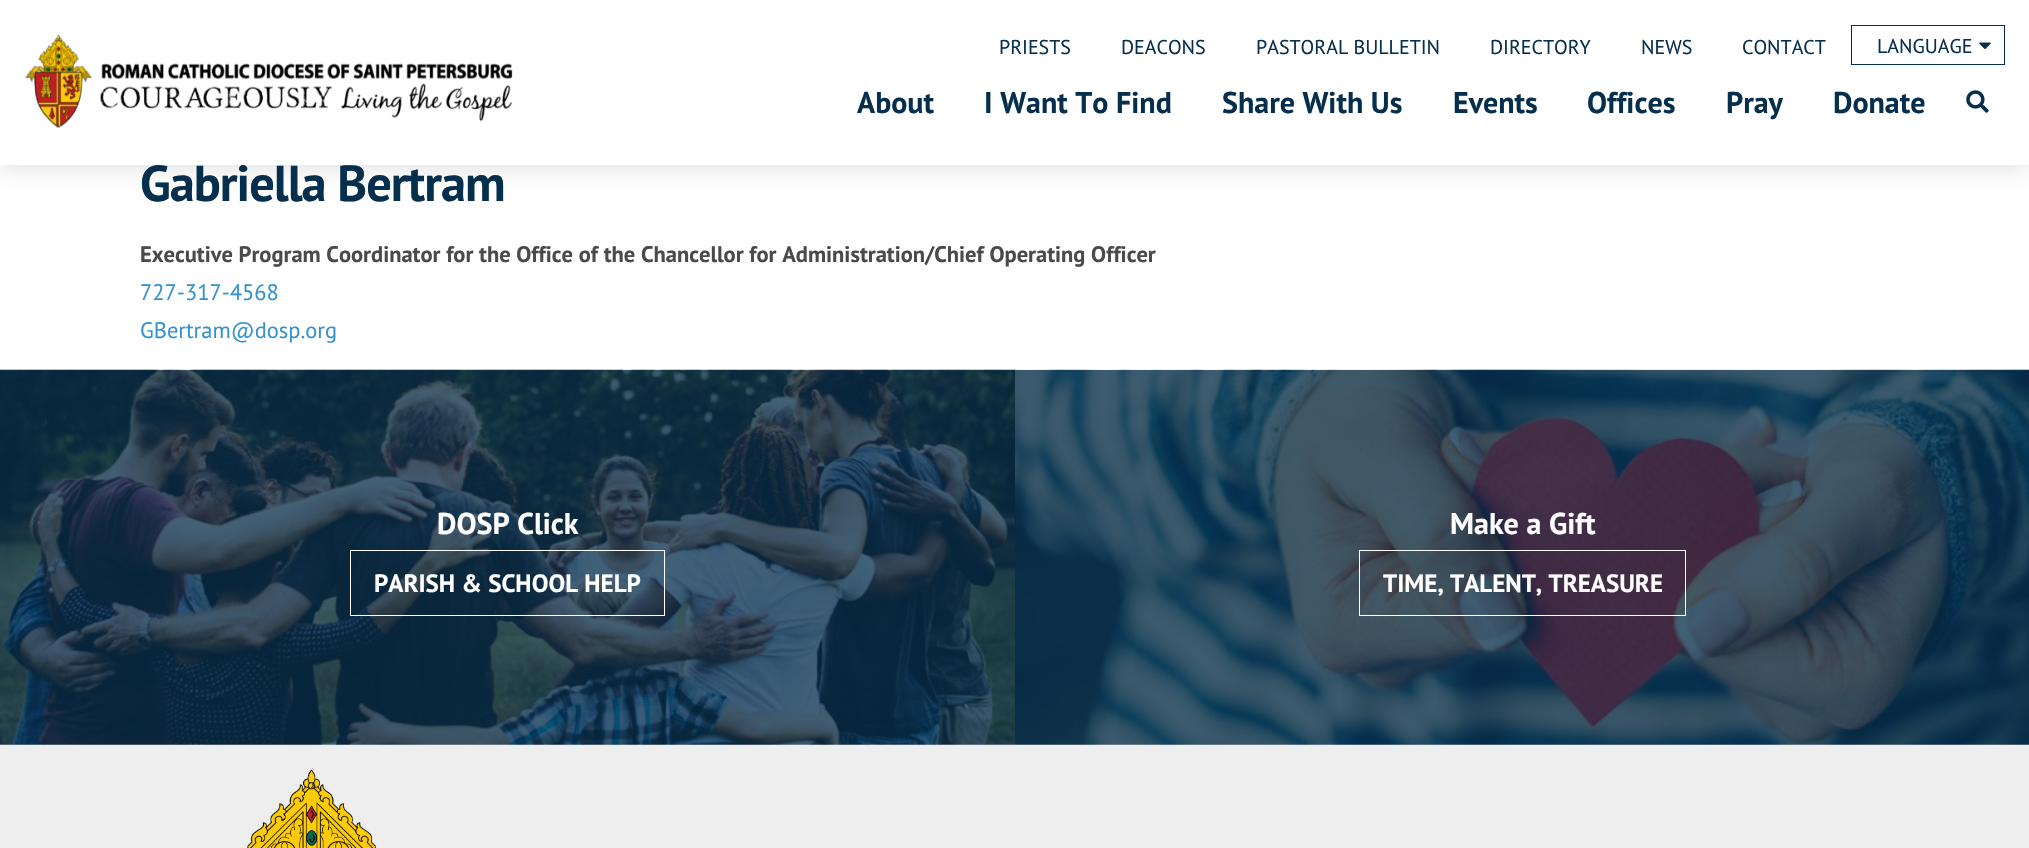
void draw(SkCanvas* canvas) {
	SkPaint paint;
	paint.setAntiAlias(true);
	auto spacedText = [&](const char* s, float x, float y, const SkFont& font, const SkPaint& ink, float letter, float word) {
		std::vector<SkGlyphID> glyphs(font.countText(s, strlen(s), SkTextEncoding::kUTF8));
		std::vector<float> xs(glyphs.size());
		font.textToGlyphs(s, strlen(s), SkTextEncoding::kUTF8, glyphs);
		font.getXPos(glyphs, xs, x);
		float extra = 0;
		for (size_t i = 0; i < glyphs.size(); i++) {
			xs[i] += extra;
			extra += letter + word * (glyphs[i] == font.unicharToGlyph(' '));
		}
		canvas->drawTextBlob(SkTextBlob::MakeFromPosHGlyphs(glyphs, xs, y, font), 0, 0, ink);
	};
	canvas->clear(0xffffffff);
	paint.setColor(0x26000000);
	paint.setMaskFilter(SkMaskFilter::MakeBlur(kNormal_SkBlurStyle, 12.5));
	canvas->drawRect(SkRect::MakeXYWH(0, 0, 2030, 165), paint);
	paint.setMaskFilter(nullptr);
	SkFont f1(fontMgr->matchFamilyStyle("PT Sans", SkFontStyle::Bold()), 50.5);
	f1.setSubpixel(true);
	paint.setColor(0xff062f4d);
	spacedText("Gabriella Bertram", 140, 201, f1, paint, -1, 0);
	paint.setColor(0xffffffff);
	canvas->drawRect(SkRect::MakeXYWH(0, 0, 2029, 165), paint);
	canvas->drawImageRect(SkImages::DeferredFromEncodedData(SkData::MakeFromFileName("img1.png")), SkRect::MakeXYWH(25, 35, 488, 93), SkSamplingOptions());
	SkFont f2(fontMgr->matchFamilyStyle("PT Sans", SkFontStyle::Normal()), 20);
	f2.setSubpixel(true);
	paint.setColor(0xff062f4d);
	canvas->drawString("PRIESTS", 999, 54, f2, paint);
	canvas->drawString("DEACONS", 1121, 54, f2, paint);
	canvas->drawString("PASTORAL BULLETIN", 1256, 54, f2, paint);
	canvas->drawString("DIRECTORY", 1490, 54, f2, paint);
	canvas->drawString("NEWS", 1641, 54, f2, paint);
	canvas->drawString("CONTACT", 1742, 54, f2, paint);
	paint.setStroke(true);
	paint.setStrokeWidth(1);
	canvas->drawRect(SkRect::MakeXYWH(1851.5, 25.5, 153, 39), paint);
	paint.setStroke(false);
	canvas->drawString("LANGUAGE", 1877, 53, f2, paint);
	canvas->drawImageRect(SkImages::DeferredFromEncodedData(SkData::MakeFromFileName("img2.png")), SkRect::MakeXYWH(1979, 42, 12, 7), SkSamplingOptions());
	SkFont f3(fontMgr->matchFamilyStyle("PT Sans", SkFontStyle::Bold()), 30);
	f3.setSubpixel(true);
	canvas->drawString("About", 857, 113, f3, paint);
	canvas->drawString("I Want To Find", 984, 113, f3, paint);
	canvas->drawString("Share With Us", 1222, 113, f3, paint);
	canvas->drawString("Events", 1453, 113, f3, paint);
	canvas->drawString("Offices", 1587, 113, f3, paint);
	canvas->drawString("Pray", 1726, 113, f3, paint);
	canvas->drawString("Donate", 1833, 113, f3, paint);
	canvas->drawImageRect(SkImages::DeferredFromEncodedData(SkData::MakeFromFileName("img3.png")), SkRect::MakeXYWH(1966, 90, 23, 23), SkSamplingOptions());
	SkFont f4(fontMgr->matchFamilyStyle("PT Sans", SkFontStyle::Bold()), 22.5);
	f4.setSubpixel(true);
	paint.setColor(0xff4a4a4a);
	canvas->drawString("Executive Program Coordinator for the Office of the Chancellor for Administration/Chief Operating Officer", 140, 262, f4, paint);
	SkFont f5(fontMgr->matchFamilyStyle("PT Sans", SkFontStyle::Normal()), 22.5);
	f5.setSubpixel(true);
	paint.setColor(0xff3492ce);
	canvas->drawString("727-317-4568", 140, 300, f5, paint);
	canvas->drawString("GBertram@dosp.org", 140, 338, f5, paint);
	paint.setColor(0xffeeeeee);
	canvas->drawRect(SkRect::MakeXYWH(0, 744, 2029, 104), paint);
	canvas->drawImageRect(SkImages::DeferredFromEncodedData(SkData::MakeFromFileName("img4.png")), SkRect::MakeXYWH(0, 369, 1015, 376), SkSamplingOptions());
	paint.setColor(0xffffffff);
	canvas->drawString("DOSP Click", 437, 534, f3, paint);
	paint.setStroke(true);
	canvas->drawRect(SkRect::MakeXYWH(350.5, 550.5, 314, 65), paint);
	SkFont f6(fontMgr->matchFamilyStyle("PT Sans", SkFontStyle::Bold()), 25);
	f6.setSubpixel(true);
	paint.setStroke(false);
	canvas->drawString("PARISH & SCHOOL HELP", 374, 592, f6, paint);
	canvas->drawImageRect(SkImages::DeferredFromEncodedData(SkData::MakeFromFileName("img5.png")), SkRect::MakeXYWH(1015, 369, 1014, 376), SkSamplingOptions());
	canvas->drawString("Make a Gift", 1450, 534, f3, paint);
	paint.setStroke(true);
	canvas->drawRect(SkRect::MakeXYWH(1359.5, 550.5, 326, 65), paint);
	paint.setStroke(false);
	canvas->drawString("TIME, TALENT, TREASURE", 1383, 592, f6, paint);
	canvas->drawImageRect(SkImages::DeferredFromEncodedData(SkData::MakeFromFileName("img6.png")), SkRect::MakeXYWH(247, 769, 130, 79), SkSamplingOptions());
}
